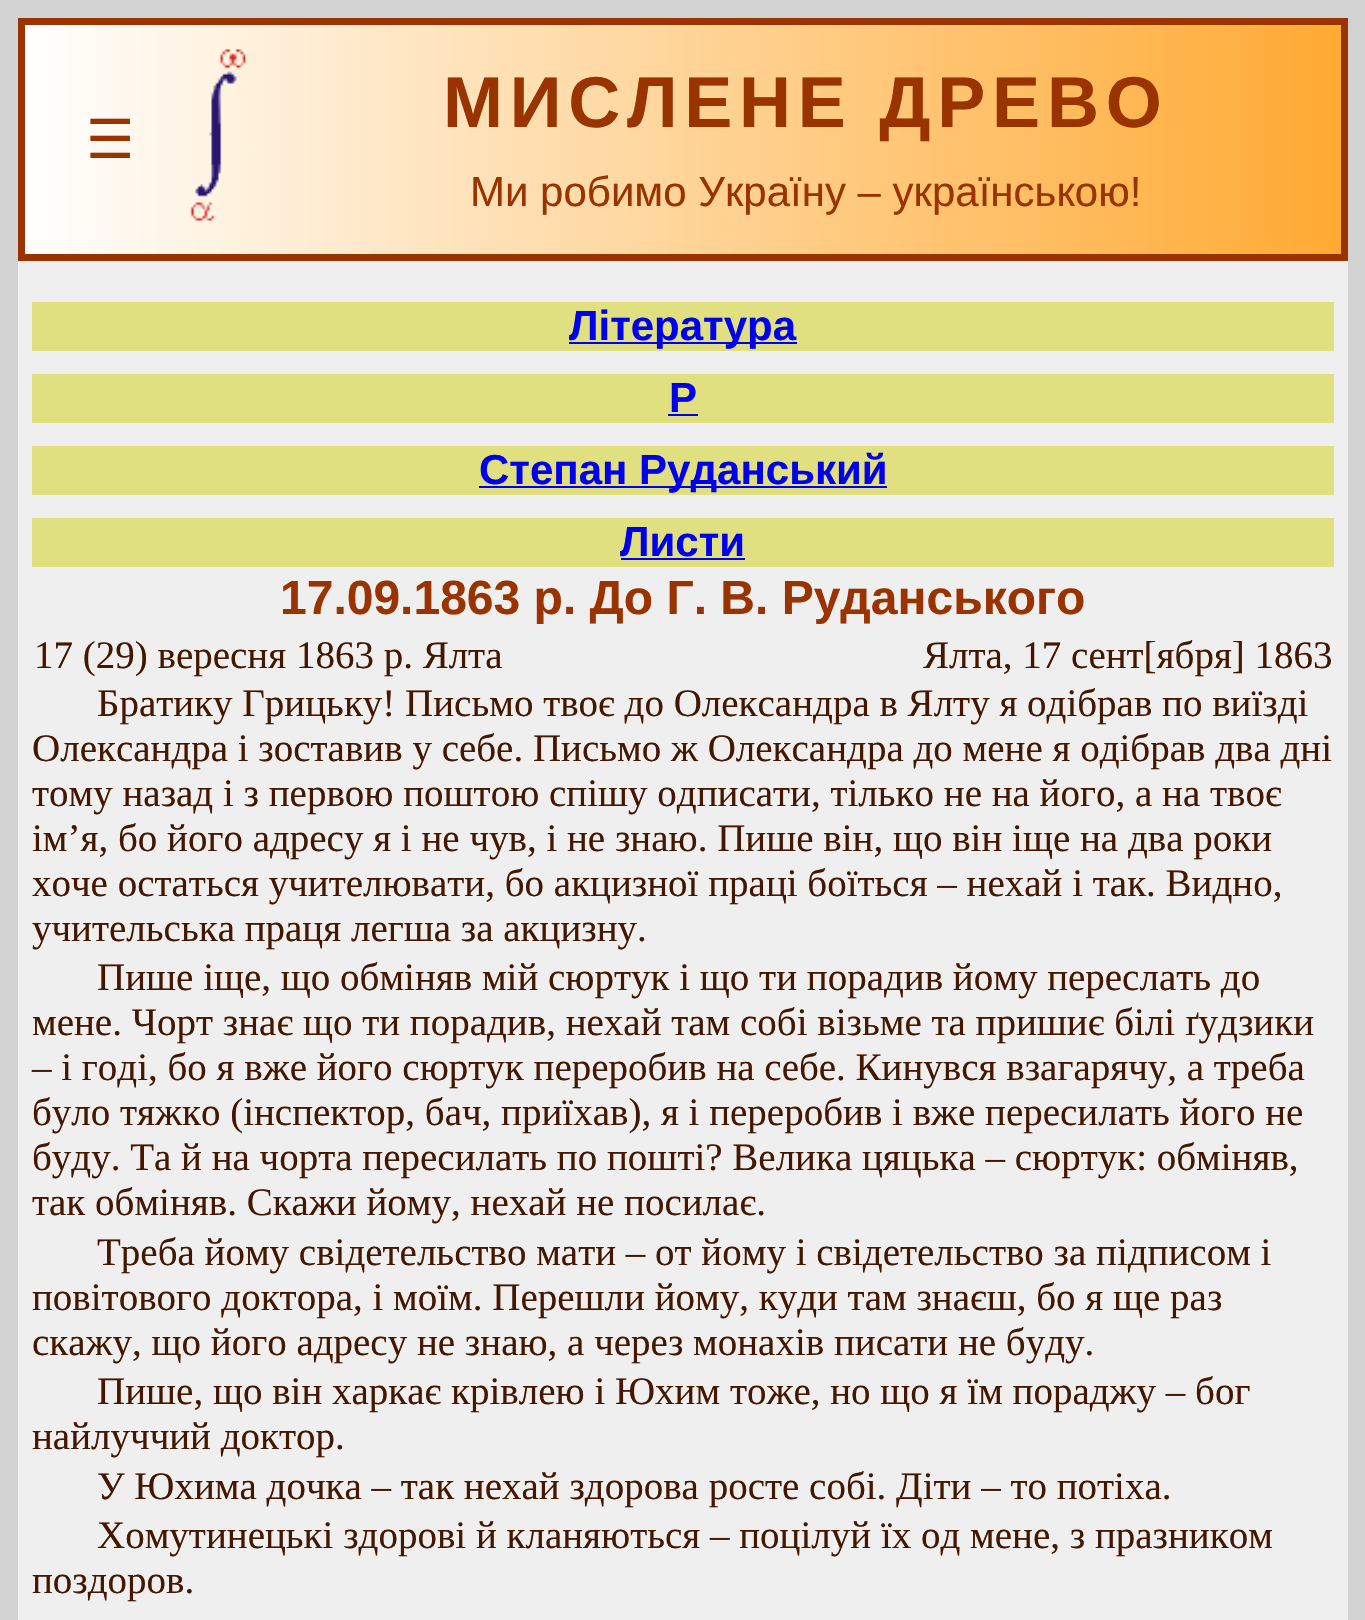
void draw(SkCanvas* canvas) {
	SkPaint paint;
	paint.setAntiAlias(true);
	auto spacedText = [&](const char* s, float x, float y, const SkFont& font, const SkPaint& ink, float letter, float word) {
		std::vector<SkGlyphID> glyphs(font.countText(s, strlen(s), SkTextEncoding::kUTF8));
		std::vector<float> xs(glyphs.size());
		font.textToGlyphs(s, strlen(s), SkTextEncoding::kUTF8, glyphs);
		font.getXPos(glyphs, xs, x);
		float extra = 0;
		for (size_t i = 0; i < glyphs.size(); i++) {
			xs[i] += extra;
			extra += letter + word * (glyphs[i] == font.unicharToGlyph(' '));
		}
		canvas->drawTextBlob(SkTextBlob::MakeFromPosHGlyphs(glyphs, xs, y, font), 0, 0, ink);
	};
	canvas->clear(0xffd2d2d2);
	{
		const SkColor colors[] = {0xffffffff, 0xffffaa33};
		const float stops[] = {0, 1};
		const SkPoint ends[] = {{25, 140}, {1341, 139}};
		paint.setShader(SkGradientShader::MakeLinear(ends, colors, stops, 2, SkTileMode::kClamp));
		paint.setAlpha(255);
	}
	canvas->drawRect(SkRect::MakeXYWH(25, 25, 1316, 229), paint);
	paint.setStroke(true);
	paint.setStrokeWidth(7);
	paint.setShader(nullptr);
	paint.setColor(0xff993300);
	canvas->drawRect(SkRect::MakeXYWH(21.5, 21.5, 1323, 236), paint);
	SkFont f1(fontMgr->matchFamilyStyle("DejaVu Sans", SkFontStyle::Normal()), 54);
	f1.setSubpixel(true);
	paint.setStroke(false);
	canvas->drawString("☰", 86, 158, f1, paint);
	canvas->drawImageRect(SkImages::DeferredFromEncodedData(SkData::MakeFromFileName("img1.png")), SkRect::MakeXYWH(190, 49, 56, 172), SkSamplingOptions());
	SkFont f2(fontMgr->matchFamilyStyle("Liberation Sans", SkFontStyle::Bold()), 72);
	f2.setSubpixel(true);
	spacedText("МИСЛЕНЕ ДРЕВО", 443, 127, f2, paint, 6.75, 0);
	SkFont f3(fontMgr->matchFamilyStyle("Liberation Sans", SkFontStyle::Normal()), 42);
	f3.setSubpixel(true);
	canvas->drawString("Ми робимо Україну – українською!", 470, 206, f3, paint);
	paint.setColor(0xffefefef);
	canvas->drawRect(SkRect::MakeXYWH(18, 261, 1330, 1359), paint);
	paint.setColor(0xffe0e080);
	canvas->drawRect(SkRect::MakeXYWH(32, 302, 1302, 49), paint);
	paint.setColor(0xff0000ee);
	canvas->drawRect(SkRect::MakeXYWH(569, 342, 228, 2), paint);
	SkFont f4(fontMgr->matchFamilyStyle("Liberation Sans", SkFontStyle::Bold()), 42);
	f4.setSubpixel(true);
	canvas->drawString("Література", 569, 340, f4, paint);
	paint.setColor(0xffe0e080);
	canvas->drawRect(SkRect::MakeXYWH(32, 374, 1302, 49), paint);
	paint.setColor(0xff0000ee);
	canvas->drawString("Р", 669, 412, f4, paint);
	canvas->drawRect(SkRect::MakeXYWH(668, 414, 30, 2), paint);
	paint.setColor(0xffe0e080);
	canvas->drawRect(SkRect::MakeXYWH(32, 446, 1302, 49), paint);
	paint.setColor(0xff0000ee);
	canvas->drawRect(SkRect::MakeXYWH(479, 486, 408, 2), paint);
	canvas->drawString("Степан Руданський", 479, 484, f4, paint);
	paint.setColor(0xffe0e080);
	canvas->drawRect(SkRect::MakeXYWH(32, 518, 1302, 49), paint);
	paint.setColor(0xff0000ee);
	canvas->drawString("Листи", 620, 556, f4, paint);
	canvas->drawRect(SkRect::MakeXYWH(621, 558, 124, 2), paint);
	SkFont f5(fontMgr->matchFamilyStyle("Liberation Sans", SkFontStyle::Bold()), 48);
	f5.setSubpixel(true);
	paint.setColor(0xff993300);
	canvas->drawString("17.09.1863 р. До Г. В. Руданського", 280, 614, f5, paint);
	SkFont f6(fontMgr->matchFamilyStyle("Liberation Serif", SkFontStyle::Normal()), 39);
	f6.setSubpixel(true);
	paint.setColor(0xff451700);
	canvas->drawString("17 (29) вересня 1863 р. Ялта", 34, 668, f6, paint);
	canvas->drawString("Ялта, 17 сент[ября] 1863", 923, 668, f6, paint);
	canvas->drawString("Братику Грицьку! Письмо твоє до Олександра в Ялту я одібрав по виїзді", 97, 716, f6, paint);
	canvas->drawString("Олександра і зоставив у себе. Письмо ж Олександра до мене я одібрав два дні", 32, 761, f6, paint);
	canvas->drawString("тому назад і з первою поштою спішу одписати, тілько не на його, а на твоє", 32, 806, f6, paint);
	canvas->drawString("ім’я, бо його адресу я і не чув, і не знаю. Пише він, що він іще на два роки", 32, 851, f6, paint);
	canvas->drawString("хоче остаться учителювати, бо акцизної праці боїться – нехай і так. Видно,", 32, 896, f6, paint);
	canvas->drawString("учительська праця легша за акцизну.", 32, 941, f6, paint);
	canvas->drawString("Пише іще, що обміняв мій сюртук і що ти порадив йому переслать до", 97, 990, f6, paint);
	canvas->drawString("мене. Чорт знає що ти порадив, нехай там собі візьме та пришиє білі ґудзики", 32, 1035, f6, paint);
	canvas->drawString("– і годі, бо я вже його сюртук переробив на себе. Кинувся взагарячу, а треба", 32, 1080, f6, paint);
	canvas->drawString("було тяжко (інспектор, бач, приїхав), я і переробив і вже пересилать його не", 32, 1125, f6, paint);
	canvas->drawString("буду. Та й на чорта пересилать по пошті? Велика цяцька – сюртук: обміняв,", 32, 1170, f6, paint);
	canvas->drawString("так обміняв. Скажи йому, нехай не посилає.", 32, 1215, f6, paint);
	canvas->drawString("Треба йому свідетельство мати – от йому і свідетельство за підписом і", 97, 1265, f6, paint);
	canvas->drawString("повітового доктора, і моїм. Перешли йому, куди там знаєш, бо я ще раз", 32, 1310, f6, paint);
	canvas->drawString("скажу, що його адресу не знаю, а через монахів писати не буду.", 32, 1355, f6, paint);
	canvas->drawString("Пише, що він харкає крівлею і Юхим тоже, но що я їм пораджу – бог", 97, 1404, f6, paint);
	canvas->drawString("найлуччий доктор.", 32, 1449, f6, paint);
	canvas->drawString("У Юхима дочка – так нехай здорова росте собі. Діти – то потіха.", 97, 1499, f6, paint);
	canvas->drawString("Хомутинецькі здорові й кланяються – поцілуй їх од мене, з празником", 97, 1548, f6, paint);
	canvas->drawString("поздоров.", 32, 1593, f6, paint);
}
